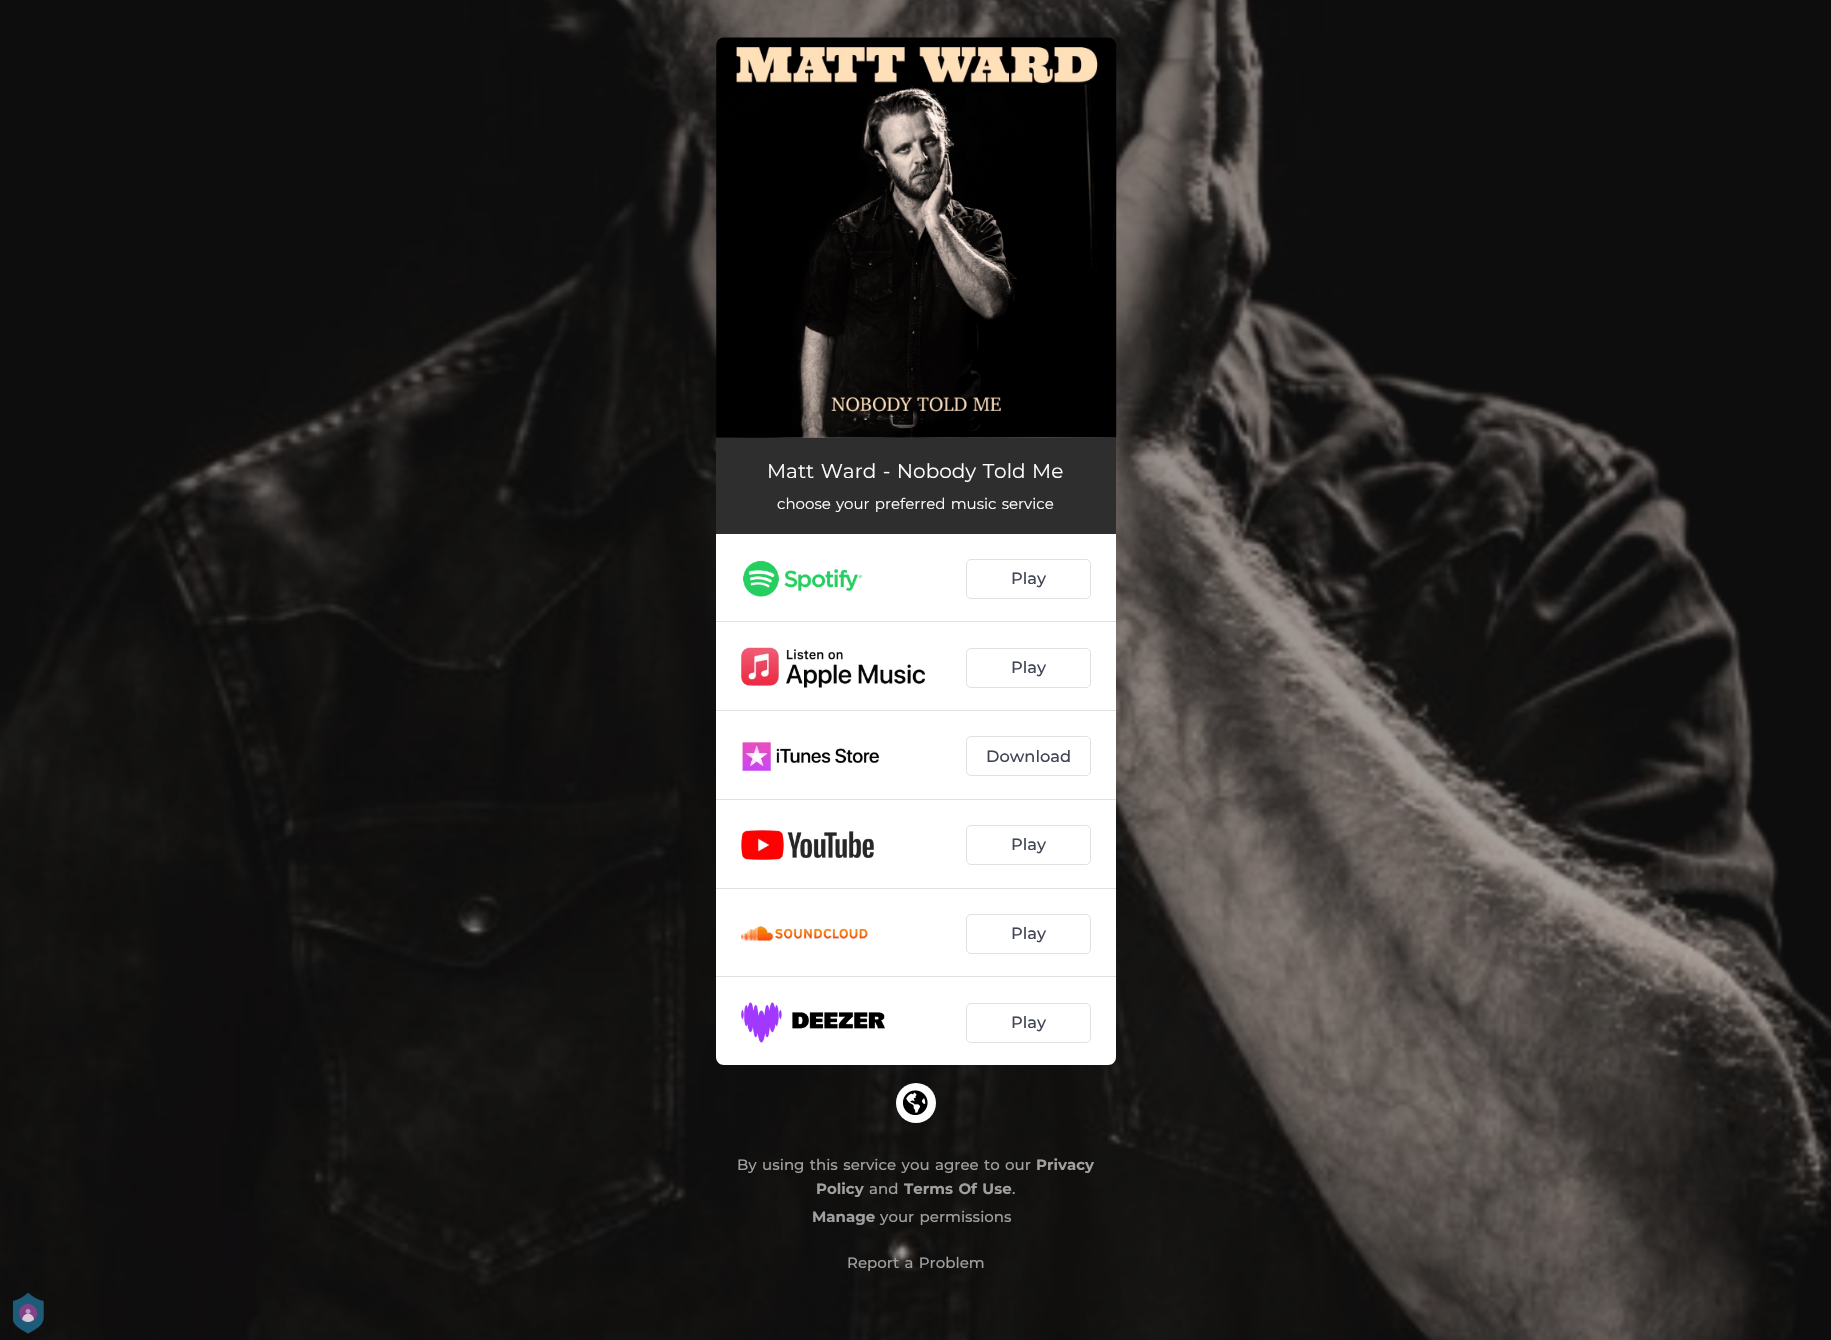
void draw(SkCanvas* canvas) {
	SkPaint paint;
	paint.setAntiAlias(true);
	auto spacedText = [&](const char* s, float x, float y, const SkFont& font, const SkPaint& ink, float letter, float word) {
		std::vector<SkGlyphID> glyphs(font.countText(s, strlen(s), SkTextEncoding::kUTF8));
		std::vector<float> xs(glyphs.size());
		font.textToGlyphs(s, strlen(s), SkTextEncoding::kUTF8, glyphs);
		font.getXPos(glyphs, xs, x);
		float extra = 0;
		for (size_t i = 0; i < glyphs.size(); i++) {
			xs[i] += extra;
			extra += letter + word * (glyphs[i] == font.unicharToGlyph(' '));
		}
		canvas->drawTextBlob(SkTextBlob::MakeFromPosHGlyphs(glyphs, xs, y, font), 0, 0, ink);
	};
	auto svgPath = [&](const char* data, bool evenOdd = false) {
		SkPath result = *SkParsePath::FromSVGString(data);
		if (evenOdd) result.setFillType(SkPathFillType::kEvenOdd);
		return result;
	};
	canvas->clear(0xffffffff);
	canvas->drawImageRect(SkImages::DeferredFromEncodedData(SkData::MakeFromFileName("img1.png")), SkRect::MakeXYWH(0, 0, 1831, 1340), SkSamplingOptions());
	canvas->drawImageRect(SkImages::DeferredFromEncodedData(SkData::MakeFromFileName("img2.png")), SkRect::MakeXYWH(716, 37, 401, 401), SkSamplingOptions());
	paint.setColor(0xff2e2e2e);
	canvas->drawRect(SkRect::MakeXYWH(716, 438, 400, 96), paint);
	SkFont f1(fontMgr->matchFamilyStyle("Montserrat", SkFontStyle::Normal()), 20);
	f1.setSubpixel(true);
	paint.setColor(0xffffffff);
	spacedText("Matt Ward - Nobody Told Me", 767, 478, f1, paint, 0, 1.25);
	SkFont f2(fontMgr->matchFamilyStyle("Montserrat", SkFontStyle::Normal()), 15);
	f2.setSubpixel(true);
	spacedText("choose your preferred music service", 777, 509, f2, paint, 0, 1.25);
	canvas->drawPath(svgPath("M716 534H1116V1057C1116 1061.5 1112.5 1065 1108 1065H724C719.5 1065 716 1061.5 716 1057Z"), paint);
	paint.setColor(0xffe1e1e4);
	canvas->drawRect(SkRect::MakeXYWH(716, 621, 400, 1), paint);
	canvas->drawImageRect(SkImages::DeferredFromEncodedData(SkData::MakeFromFileName("img3.png")), SkRect::MakeXYWH(742, 560, 121, 37), SkSamplingOptions());
	paint.setStroke(true);
	paint.setStrokeWidth(1);
	canvas->drawRoundRect(SkRect::MakeXYWH(966.5, 559.5, 124, 39), 4.5, 4.5, paint);
	SkFont f3(fontMgr->matchFamilyStyle("Montserrat", SkFontStyle(500, SkFontStyle::kNormal_Width, SkFontStyle::kUpright_Slant)), 16.25);
	f3.setSubpixel(true);
	paint.setStroke(false);
	paint.setColor(0xff414754);
	canvas->drawString("Play", 1011, 584, f3, paint);
	paint.setColor(0xffe1e1e4);
	canvas->drawRect(SkRect::MakeXYWH(716, 710, 400, 1), paint);
	canvas->drawImageRect(SkImages::DeferredFromEncodedData(SkData::MakeFromFileName("img4.png")), SkRect::MakeXYWH(741, 647, 184, 41), SkSamplingOptions());
	paint.setStroke(true);
	canvas->drawRoundRect(SkRect::MakeXYWH(966.5, 648.5, 124, 39), 4.5, 4.5, paint);
	paint.setStroke(false);
	paint.setColor(0xff414754);
	canvas->drawString("Play", 1011, 673, f3, paint);
	paint.setColor(0xffe1e1e4);
	canvas->drawRect(SkRect::MakeXYWH(716, 799, 400, 1), paint);
	canvas->drawImageRect(SkImages::DeferredFromEncodedData(SkData::MakeFromFileName("img5.png")), SkRect::MakeXYWH(742, 742, 138, 29), SkSamplingOptions());
	paint.setStroke(true);
	canvas->drawRoundRect(SkRect::MakeXYWH(966.5, 736.5, 124, 39), 4.5, 4.5, paint);
	paint.setStroke(false);
	paint.setColor(0xff414754);
	canvas->drawString("Download", 986, 762, f3, paint);
	paint.setColor(0xffe1e1e4);
	canvas->drawRect(SkRect::MakeXYWH(716, 888, 400, 1), paint);
	canvas->drawImageRect(SkImages::DeferredFromEncodedData(SkData::MakeFromFileName("img6.png")), SkRect::MakeXYWH(741, 830, 133, 30), SkSamplingOptions());
	paint.setStroke(true);
	canvas->drawRoundRect(SkRect::MakeXYWH(966.5, 825.5, 124, 39), 4.5, 4.5, paint);
	paint.setStroke(false);
	paint.setColor(0xff414754);
	canvas->drawString("Play", 1011, 850, f3, paint);
	paint.setColor(0xffe1e1e4);
	canvas->drawRect(SkRect::MakeXYWH(716, 976, 400, 1), paint);
	canvas->drawImageRect(SkImages::DeferredFromEncodedData(SkData::MakeFromFileName("img7.png")), SkRect::MakeXYWH(741, 926, 127, 15), SkSamplingOptions());
	paint.setStroke(true);
	canvas->drawRoundRect(SkRect::MakeXYWH(966.5, 914.5, 124, 39), 4.5, 4.5, paint);
	paint.setStroke(false);
	paint.setColor(0xff414754);
	canvas->drawString("Play", 1011, 939, f3, paint);
	canvas->drawImageRect(SkImages::DeferredFromEncodedData(SkData::MakeFromFileName("img8.png")), SkRect::MakeXYWH(741, 1002, 144, 41), SkSamplingOptions());
	paint.setStroke(true);
	paint.setColor(0xffe1e1e4);
	canvas->drawRoundRect(SkRect::MakeXYWH(966.5, 1003.5, 124, 39), 4.5, 4.5, paint);
	paint.setStroke(false);
	paint.setColor(0xff414754);
	canvas->drawString("Play", 1011, 1028, f3, paint);
	paint.setColor(0xffffffff);
	canvas->drawCircle(916, 1103, 20, paint);
	canvas->drawImageRect(SkImages::DeferredFromEncodedData(SkData::MakeFromFileName("img9.png")), SkRect::MakeXYWH(903, 1090, 25, 25), SkSamplingOptions());
	SkFont f4(fontMgr->matchFamilyStyle("Montserrat", SkFontStyle(500, SkFontStyle::kNormal_Width, SkFontStyle::kUpright_Slant)), 15);
	f4.setSubpixel(true);
	paint.setColor(0xffa0a09f);
	spacedText("By using this service you agree to our", 737, 1170, f4, paint, 0, 1.25);
	SkFont f5(fontMgr->matchFamilyStyle("Montserrat", SkFontStyle::Bold()), 15);
	f5.setSubpixel(true);
	canvas->drawString("Privacy", 1036, 1170, f5, paint);
	canvas->drawString("Policy", 816, 1194, f5, paint);
	canvas->drawString("and", 869, 1194, f4, paint);
	spacedText("Terms Of Use", 904, 1194, f5, paint, 0, 1.25);
	canvas->drawString(".", 1012, 1194, f4, paint);
	canvas->drawString("Manage", 812, 1222, f5, paint);
	spacedText("your permissions", 880, 1222, f4, paint, 0, 1.25);
	spacedText("Report a Problem", 847, 1268, f4, paint, 0, 1.25);
	canvas->drawImageRect(SkImages::DeferredFromEncodedData(SkData::MakeFromFileName("img10.png")), SkRect::MakeXYWH(13, 1293, 31, 41), SkSamplingOptions());
}
